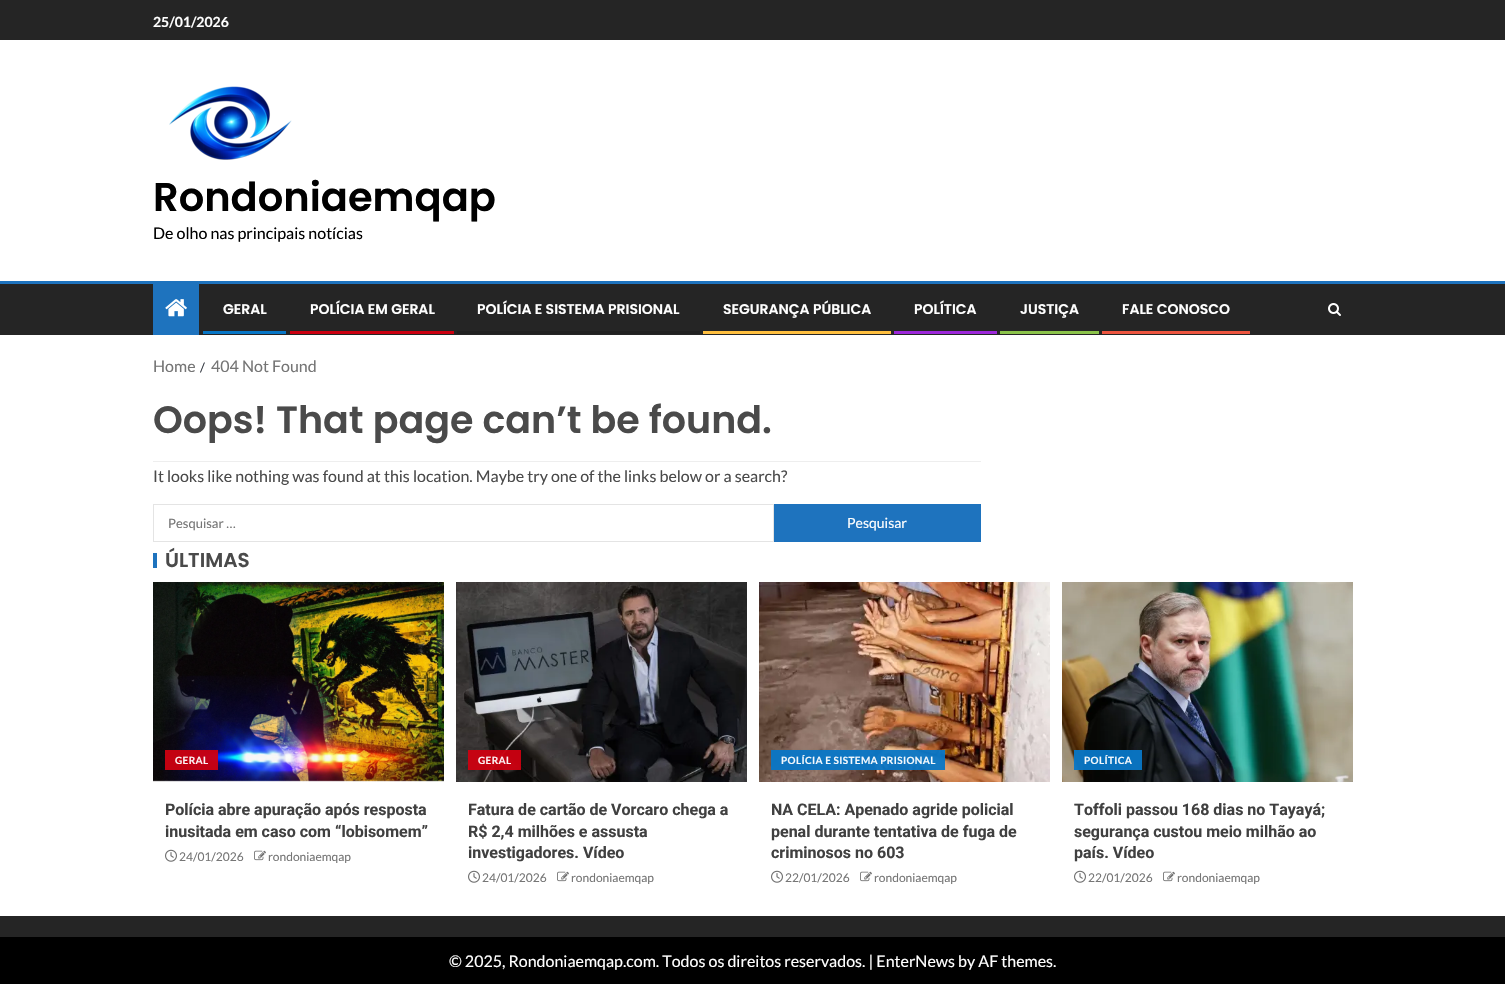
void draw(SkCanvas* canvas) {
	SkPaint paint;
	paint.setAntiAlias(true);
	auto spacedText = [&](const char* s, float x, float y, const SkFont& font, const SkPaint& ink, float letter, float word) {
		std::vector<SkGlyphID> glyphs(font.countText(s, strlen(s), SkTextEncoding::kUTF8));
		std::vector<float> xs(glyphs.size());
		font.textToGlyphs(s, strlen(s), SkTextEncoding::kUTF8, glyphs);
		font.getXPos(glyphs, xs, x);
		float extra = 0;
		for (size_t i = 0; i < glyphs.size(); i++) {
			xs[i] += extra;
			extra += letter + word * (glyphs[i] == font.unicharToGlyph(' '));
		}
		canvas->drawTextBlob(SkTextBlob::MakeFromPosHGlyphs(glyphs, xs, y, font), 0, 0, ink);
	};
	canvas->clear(0xffffffff);
	paint.setColor(0xff252525);
	canvas->drawRect(SkRect::MakeXYWH(0, 0, 1505, 40), paint);
	SkFont f1(fontMgr->matchFamilyStyle("Lato", SkFontStyle::Bold()), 14);
	f1.setSubpixel(true);
	paint.setColor(0xffffffff);
	canvas->drawString("25/01/2026", 153, 27, f1, paint);
	canvas->drawImageRect(SkImages::DeferredFromEncodedData(SkData::MakeFromFileName("img1.png")), SkRect::MakeXYWH(169, 86, 123, 74), SkSamplingOptions());
	SkFont f2(fontMgr->matchFamilyStyle("Poppins", SkFontStyle(600, SkFontStyle::kNormal_Width, SkFontStyle::kUpright_Slant)), 40);
	f2.setSubpixel(true);
	paint.setColor(0xff000000);
	canvas->drawString("Rondoniaemqap", 153, 211, f2, paint);
	SkFont f3(fontMgr->matchFamilyStyle("Lato", SkFontStyle::Normal()), 16);
	f3.setSubpixel(true);
	canvas->drawString("De olho nas principais notícias", 153, 239, f3, paint);
	paint.setColor(0xff252525);
	canvas->drawRect(SkRect::MakeXYWH(0, 284, 1505, 51), paint);
	paint.setColor(0xff1e73be);
	canvas->drawRect(SkRect::MakeXYWH(0, 281, 1505, 3), paint);
	canvas->drawRect(SkRect::MakeXYWH(153, 284, 46, 51), paint);
	canvas->drawImageRect(SkImages::DeferredFromEncodedData(SkData::MakeFromFileName("img2.png")), SkRect::MakeXYWH(165, 299, 22, 18), SkSamplingOptions());
	SkFont f4(fontMgr->matchFamilyStyle("Poppins", SkFontStyle(600, SkFontStyle::kNormal_Width, SkFontStyle::kUpright_Slant)), 14);
	f4.setSubpixel(true);
	paint.setColor(0xffffffff);
	canvas->drawString("GERAL", 223, 314, f4, paint);
	paint.setColor(0xff0776c6);
	canvas->drawRect(SkRect::MakeXYWH(203, 331, 83, 3), paint);
	paint.setColor(0xffffffff);
	canvas->drawString("POLÍCIA EM GERAL", 310, 314, f4, paint);
	paint.setColor(0xffcc0010);
	canvas->drawRect(SkRect::MakeXYWH(290, 331, 164, 3), paint);
	paint.setColor(0xffffffff);
	canvas->drawString("POLÍCIA E SISTEMA PRISIONAL", 477, 314, f4, paint);
	paint.setColor(0xff202020);
	canvas->drawRect(SkRect::MakeXYWH(457, 331, 243, 3), paint);
	paint.setColor(0xffffffff);
	canvas->drawString("SEGURANÇA PÚBLICA", 723, 314, f4, paint);
	paint.setColor(0xffffbf3f);
	canvas->drawRect(SkRect::MakeXYWH(703, 331, 188, 3), paint);
	paint.setColor(0xffffffff);
	canvas->drawString("POLÍTICA", 914, 314, f4, paint);
	paint.setColor(0xff9c27d9);
	canvas->drawRect(SkRect::MakeXYWH(894, 331, 103, 3), paint);
	paint.setColor(0xffffffff);
	canvas->drawString("JUSTIÇA", 1020, 314, f4, paint);
	paint.setColor(0xff8bc34a);
	canvas->drawRect(SkRect::MakeXYWH(1000, 331, 99, 3), paint);
	paint.setColor(0xffffffff);
	canvas->drawString("FALE CONOSCO", 1122, 314, f4, paint);
	paint.setColor(0xffed553f);
	canvas->drawRect(SkRect::MakeXYWH(1102, 331, 148, 3), paint);
	canvas->drawImageRect(SkImages::DeferredFromEncodedData(SkData::MakeFromFileName("img3.png")), SkRect::MakeXYWH(1328, 303, 13, 13), SkSamplingOptions());
	paint.setColor(0xff757575);
	canvas->drawString("Home", 153, 372, f3, paint);
	SkFont f5(fontMgr->matchFamilyStyle("Lato", SkFontStyle::Normal()), 13);
	f5.setSubpixel(true);
	paint.setColor(0xff393e46);
	canvas->drawString("/", 200, 372, f5, paint);
	paint.setColor(0xff757575);
	canvas->drawString("404 Not Found", 211, 372, f3, paint);
	paint.setColor(0xffeeeeee);
	canvas->drawRect(SkRect::MakeXYWH(153, 461, 828, 1), paint);
	SkFont f6(fontMgr->matchFamilyStyle("Poppins", SkFontStyle(600, SkFontStyle::kNormal_Width, SkFontStyle::kUpright_Slant)), 38);
	f6.setSubpixel(true);
	paint.setColor(0xff4a4a4a);
	canvas->drawString("Oops! That page can’t be found.", 153, 433, f6, paint);
	canvas->drawString("It looks like nothing was found at this location. Maybe try one of the links below or a search?", 153, 482, f3, paint);
	paint.setStroke(true);
	paint.setStrokeWidth(1);
	paint.setColor(0xffe4e4e4);
	canvas->drawRect(SkRect::MakeXYWH(153.5, 504.5, 620, 37), paint);
	paint.setStroke(false);
	paint.setColor(0xff757575);
	canvas->drawString("Pesquisar …", 168, 528, f5, paint);
	paint.setColor(0xff1e73be);
	canvas->drawRect(SkRect::MakeXYWH(774, 504, 207, 38), paint);
	SkFont f7(fontMgr->matchFamilyStyle("Lato", SkFontStyle::Normal()), 14);
	f7.setSubpixel(true);
	paint.setColor(0xffffffff);
	canvas->drawString("Pesquisar", 847, 528, f7, paint);
	paint.setColor(0xff1e73be);
	canvas->drawRect(SkRect::MakeXYWH(153, 553, 4, 15), paint);
	SkFont f8(fontMgr->matchFamilyStyle("Poppins", SkFontStyle(600, SkFontStyle::kNormal_Width, SkFontStyle::kUpright_Slant)), 20);
	f8.setSubpixel(true);
	paint.setColor(0xff4a4a4a);
	canvas->drawString("ÚLTIMAS", 165, 567, f8, paint);
	canvas->drawImageRect(SkImages::DeferredFromEncodedData(SkData::MakeFromFileName("img4.png")), SkRect::MakeXYWH(153, 582, 291, 200), SkSamplingOptions());
	paint.setColor(0xf2cc0010);
	canvas->drawRect(SkRect::MakeXYWH(165, 750, 53, 20), paint);
	SkFont f9(fontMgr->matchFamilyStyle("Lato", SkFontStyle::Bold()), 10);
	f9.setSubpixel(true);
	paint.setColor(0xfffcf2f3);
	spacedText("GERAL", 175, 764, f9, paint, 0.35, 0);
	SkFont f10(fontMgr->matchFamilyStyle("Roboto", SkFontStyle::Bold()), 16);
	f10.setSubpixel(true);
	paint.setColor(0xff404040);
	canvas->drawString("Polícia abre apuração após resposta", 165, 815, f10, paint);
	canvas->drawString("inusitada em caso com “lobisomem”", 165, 837, f10, paint);
	canvas->drawImageRect(SkImages::DeferredFromEncodedData(SkData::MakeFromFileName("img5.png")), SkRect::MakeXYWH(165, 849, 12, 13), SkSamplingOptions());
	SkFont f11(fontMgr->matchFamilyStyle("Lato", SkFontStyle::Normal()), 12);
	f11.setSubpixel(true);
	paint.setColor(0xff757575);
	canvas->drawString("24/01/2026", 179, 861, f11, paint);
	canvas->drawImageRect(SkImages::DeferredFromEncodedData(SkData::MakeFromFileName("img6.png")), SkRect::MakeXYWH(254, 850, 12, 11), SkSamplingOptions());
	canvas->drawString("rondoniaemqap", 268, 861, f11, paint);
	canvas->drawImageRect(SkImages::DeferredFromEncodedData(SkData::MakeFromFileName("img7.png")), SkRect::MakeXYWH(456, 582, 291, 200), SkSamplingOptions());
	paint.setColor(0xf2cc0010);
	canvas->drawRect(SkRect::MakeXYWH(468, 750, 53, 20), paint);
	paint.setColor(0xfffcf2f3);
	spacedText("GERAL", 478, 764, f9, paint, 0.35, 0);
	paint.setColor(0xff404040);
	canvas->drawString("Fatura de cartão de Vorcaro chega a", 468, 815, f10, paint);
	canvas->drawString("R$ 2,4 milhões e assusta", 468, 837, f10, paint);
	canvas->drawString("investigadores. Vídeo", 468, 858, f10, paint);
	canvas->drawImageRect(SkImages::DeferredFromEncodedData(SkData::MakeFromFileName("img5.png")), SkRect::MakeXYWH(468, 870, 12, 13), SkSamplingOptions());
	paint.setColor(0xff757575);
	canvas->drawString("24/01/2026", 482, 882, f11, paint);
	canvas->drawImageRect(SkImages::DeferredFromEncodedData(SkData::MakeFromFileName("img6.png")), SkRect::MakeXYWH(557, 871, 12, 11), SkSamplingOptions());
	canvas->drawString("rondoniaemqap", 571, 882, f11, paint);
	canvas->drawImageRect(SkImages::DeferredFromEncodedData(SkData::MakeFromFileName("img8.png")), SkRect::MakeXYWH(759, 582, 291, 200), SkSamplingOptions());
	paint.setColor(0xf20776c6);
	canvas->drawRect(SkRect::MakeXYWH(771, 750, 174, 20), paint);
	paint.setColor(0xfff3f8fc);
	spacedText("POLÍCIA E SISTEMA PRISIONAL", 781, 764, f9, paint, 0.35, 0);
	paint.setColor(0xff404040);
	canvas->drawString("NA CELA: Apenado agride policial", 771, 815, f10, paint);
	canvas->drawString("penal durante tentativa de fuga de", 771, 837, f10, paint);
	canvas->drawString("criminosos no 603", 771, 858, f10, paint);
	canvas->drawImageRect(SkImages::DeferredFromEncodedData(SkData::MakeFromFileName("img5.png")), SkRect::MakeXYWH(771, 870, 12, 13), SkSamplingOptions());
	paint.setColor(0xff757575);
	canvas->drawString("22/01/2026", 785, 882, f11, paint);
	canvas->drawImageRect(SkImages::DeferredFromEncodedData(SkData::MakeFromFileName("img6.png")), SkRect::MakeXYWH(860, 871, 12, 11), SkSamplingOptions());
	canvas->drawString("rondoniaemqap", 874, 882, f11, paint);
	canvas->drawImageRect(SkImages::DeferredFromEncodedData(SkData::MakeFromFileName("img9.png")), SkRect::MakeXYWH(1062, 582, 291, 200), SkSamplingOptions());
	paint.setColor(0xf20776c6);
	canvas->drawRect(SkRect::MakeXYWH(1074, 750, 68, 20), paint);
	paint.setColor(0xfff3f8fc);
	spacedText("POLÍTICA", 1084, 764, f9, paint, 0.35, 0);
	paint.setColor(0xff404040);
	canvas->drawString("Toffoli passou 168 dias no Tayayá;", 1074, 815, f10, paint);
	canvas->drawString("segurança custou meio milhão ao", 1074, 837, f10, paint);
	canvas->drawString("país. Vídeo", 1074, 858, f10, paint);
	canvas->drawImageRect(SkImages::DeferredFromEncodedData(SkData::MakeFromFileName("img5.png")), SkRect::MakeXYWH(1074, 870, 12, 13), SkSamplingOptions());
	paint.setColor(0xff757575);
	canvas->drawString("22/01/2026", 1088, 882, f11, paint);
	canvas->drawImageRect(SkImages::DeferredFromEncodedData(SkData::MakeFromFileName("img6.png")), SkRect::MakeXYWH(1163, 871, 12, 11), SkSamplingOptions());
	canvas->drawString("rondoniaemqap", 1177, 882, f11, paint);
	paint.setColor(0xff252525);
	canvas->drawRect(SkRect::MakeXYWH(0, 916, 1505, 21), paint);
	paint.setColor(0xff000000);
	canvas->drawRect(SkRect::MakeXYWH(0, 937, 1505, 47), paint);
	paint.setColor(0xffffffff);
	canvas->drawString("© 2025, Rondoniaemqap.com. Todos os direitos reservados. | EnterNews by AF themes.", 449, 967, f3, paint);
}
